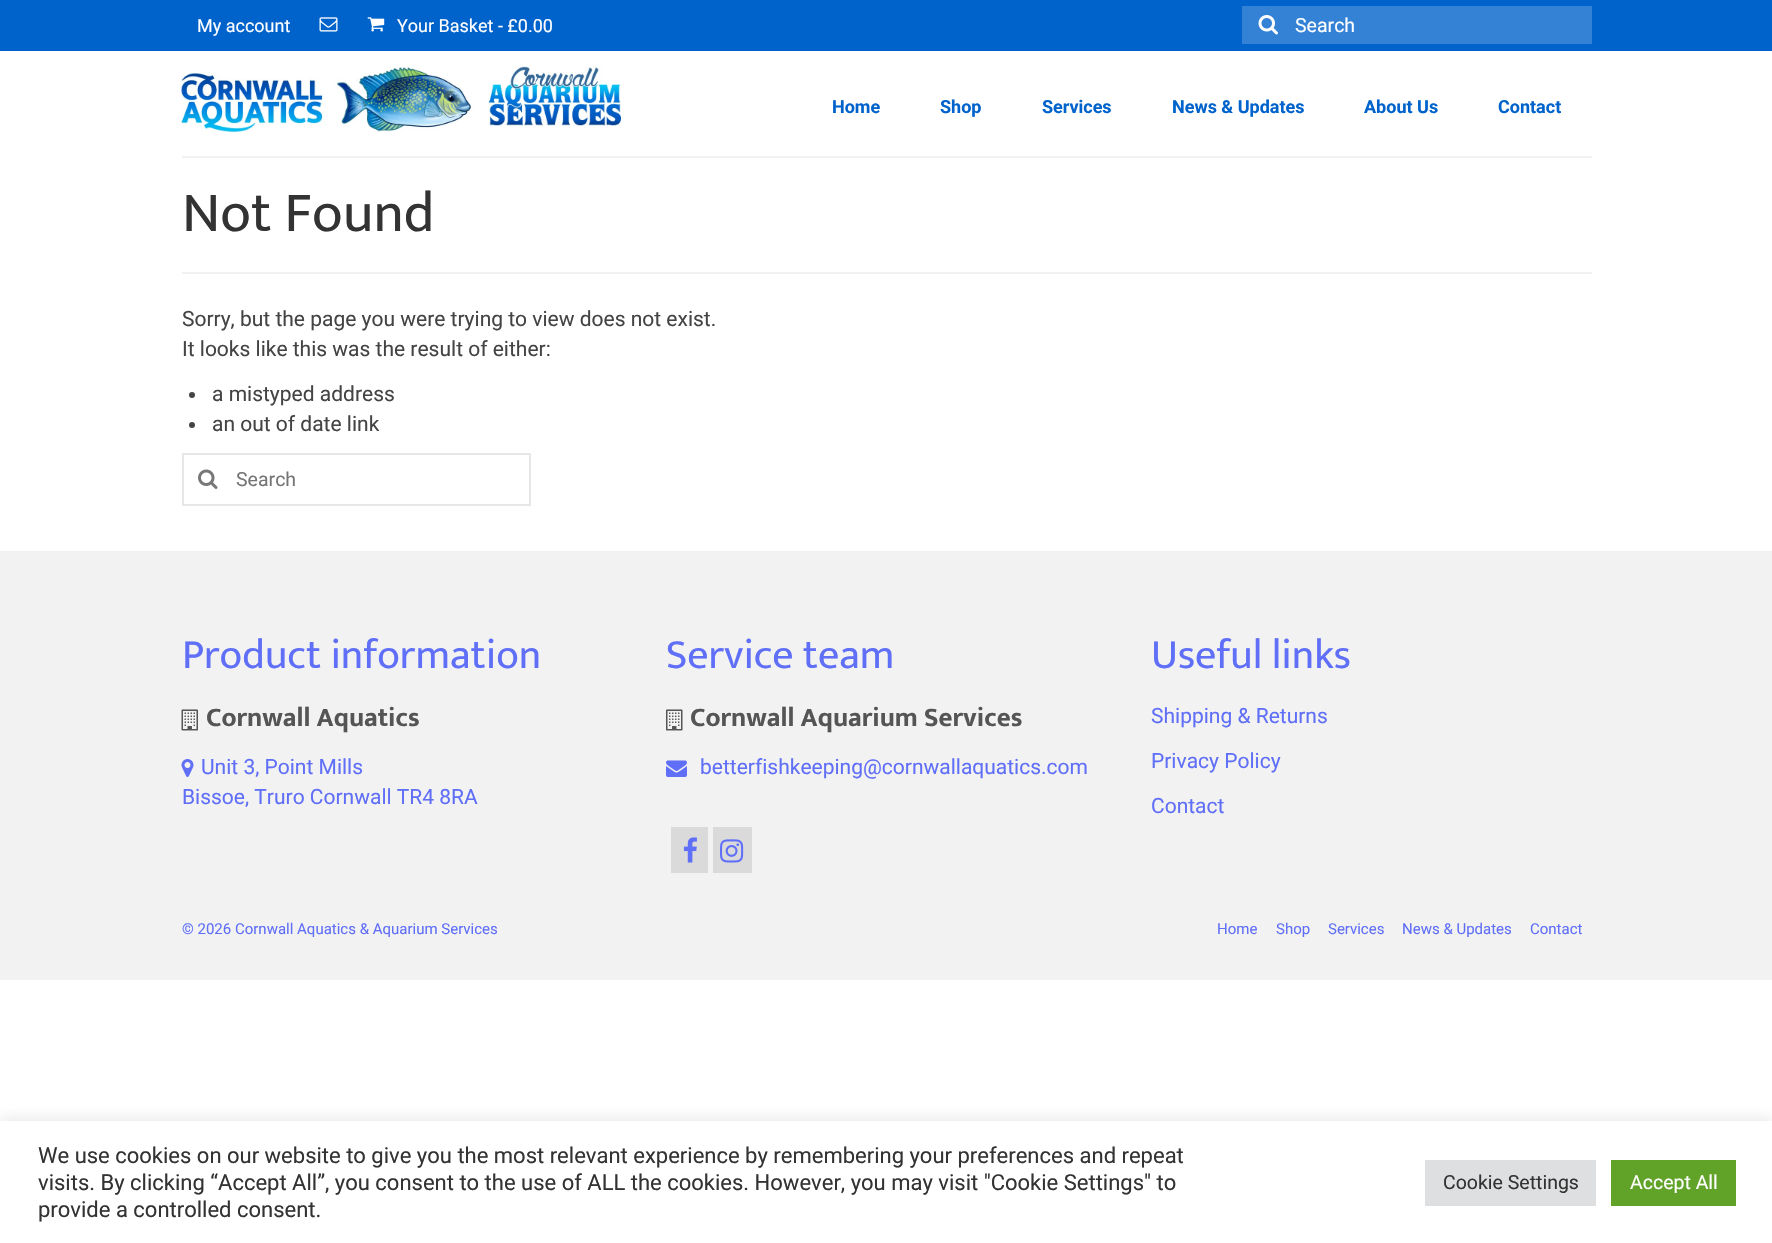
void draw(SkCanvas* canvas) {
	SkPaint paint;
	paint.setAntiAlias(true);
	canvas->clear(0xffffffff);
	paint.setColor(0xff0063cc);
	canvas->drawRect(SkRect::MakeXYWH(0, 0, 1772, 51), paint);
	SkFont f1(fontMgr->matchFamilyStyle("Roboto", SkFontStyle::Normal()), 18);
	f1.setSubpixel(true);
	paint.setColor(0xffffffff);
	canvas->drawString("My account", 197, 32, f1, paint);
	canvas->drawImageRect(SkImages::DeferredFromEncodedData(SkData::MakeFromFileName("img1.png")), SkRect::MakeXYWH(319, 17, 19, 15), SkSamplingOptions());
	canvas->drawImageRect(SkImages::DeferredFromEncodedData(SkData::MakeFromFileName("img2.png")), SkRect::MakeXYWH(367, 17, 18, 15), SkSamplingOptions());
	canvas->drawString("Your Basket - £0.00", 397, 32, f1, paint);
	paint.setColor(0xff3382d6);
	canvas->drawRect(SkRect::MakeXYWH(1242, 6, 350, 38), paint);
	canvas->drawImageRect(SkImages::DeferredFromEncodedData(SkData::MakeFromFileName("img3.png")), SkRect::MakeXYWH(1258, 15, 20, 20), SkSamplingOptions());
	SkFont f2(fontMgr->matchFamilyStyle("Roboto", SkFontStyle::Normal()), 19.5);
	f2.setSubpixel(true);
	paint.setColor(0xffffffff);
	canvas->drawString("Search", 1295, 32, f2, paint);
	canvas->drawImageRect(SkImages::DeferredFromEncodedData(SkData::MakeFromFileName("img4.png")), SkRect::MakeXYWH(181, 66, 440, 67), SkSamplingOptions());
	SkFont f3(fontMgr->matchFamilyStyle("Roboto", SkFontStyle::Bold()), 18);
	f3.setSubpixel(true);
	paint.setColor(0xff0063cc);
	canvas->drawString("Home", 832, 113, f3, paint);
	canvas->drawString("Shop", 940, 113, f3, paint);
	canvas->drawString("Services", 1042, 113, f3, paint);
	canvas->drawString("News & Updates", 1172, 113, f3, paint);
	canvas->drawString("About Us", 1364, 113, f3, paint);
	canvas->drawString("Contact", 1498, 113, f3, paint);
	paint.setColor(0xfff2f2f2);
	canvas->drawRect(SkRect::MakeXYWH(182, 156, 1410, 2), paint);
	canvas->drawRect(SkRect::MakeXYWH(182, 272, 1410, 2), paint);
	SkFont f4(fontMgr->matchFamilyStyle("Mukta", SkFontStyle::Normal()), 57);
	f4.setSubpixel(true);
	paint.setColor(0xff333333);
	canvas->drawString("Not Found", 182, 231, f4, paint);
	SkFont f5(fontMgr->matchFamilyStyle("Roboto", SkFontStyle::Normal()), 21);
	f5.setSubpixel(true);
	paint.setColor(0xff444444);
	canvas->drawString("Sorry, but the page you were trying to view does not exist.", 182, 326, f5, paint);
	canvas->drawString("It looks like this was the result of either:", 182, 356, f5, paint);
	canvas->drawCircle(192, 395, 3, paint);
	canvas->drawString("a mistyped address", 212, 401, f5, paint);
	canvas->drawCircle(192, 425, 3, paint);
	canvas->drawString("an out of date link", 212, 431, f5, paint);
	paint.setStroke(true);
	paint.setStrokeWidth(2);
	paint.setColor(0xffe7e7e7);
	canvas->drawRect(SkRect::MakeXYWH(183, 454, 347, 51), paint);
	canvas->drawImageRect(SkImages::DeferredFromEncodedData(SkData::MakeFromFileName("img5.png")), SkRect::MakeXYWH(198, 469, 20, 20), SkSamplingOptions());
	paint.setStroke(false);
	paint.setColor(0xff757575);
	canvas->drawString("Search", 236, 486, f2, paint);
	paint.setColor(0xfff2f2f2);
	canvas->drawRect(SkRect::MakeXYWH(0, 551, 1772, 429), paint);
	SkFont f6(fontMgr->matchFamilyStyle("Mukta", SkFontStyle::Normal()), 42);
	f6.setSubpixel(true);
	paint.setColor(0xff606ff7);
	canvas->drawString("Product information", 182, 668, f6, paint);
	canvas->drawImageRect(SkImages::DeferredFromEncodedData(SkData::MakeFromFileName("img6.png")), SkRect::MakeXYWH(181, 709, 17, 22), SkSamplingOptions());
	SkFont f7(fontMgr->matchFamilyStyle("Mukta", SkFontStyle::Bold()), 27);
	f7.setSubpixel(true);
	paint.setColor(0xff555555);
	canvas->drawString("Cornwall Aquatics", 206, 726, f7, paint);
	canvas->drawImageRect(SkImages::DeferredFromEncodedData(SkData::MakeFromFileName("img7.png")), SkRect::MakeXYWH(181, 759, 13, 18), SkSamplingOptions());
	paint.setColor(0xff606ff7);
	canvas->drawString("Unit 3, Point Mills", 201, 774, f5, paint);
	canvas->drawString("Bissoe, Truro Cornwall TR4 8RA", 182, 804, f5, paint);
	canvas->drawString("Service team", 666, 668, f6, paint);
	canvas->drawImageRect(SkImages::DeferredFromEncodedData(SkData::MakeFromFileName("img8.png")), SkRect::MakeXYWH(666, 709, 17, 22), SkSamplingOptions());
	paint.setColor(0xff555555);
	canvas->drawString("Cornwall Aquarium Services", 690, 726, f7, paint);
	canvas->drawImageRect(SkImages::DeferredFromEncodedData(SkData::MakeFromFileName("img9.png")), SkRect::MakeXYWH(666, 760, 21, 17), SkSamplingOptions());
	paint.setColor(0xff606ff7);
	canvas->drawString("betterfishkeeping@cornwallaquatics.com", 700, 774, f5, paint);
	paint.setColor(0xffdadada);
	canvas->drawRect(SkRect::MakeXYWH(671, 827, 37, 46), paint);
	canvas->drawImageRect(SkImages::DeferredFromEncodedData(SkData::MakeFromFileName("img10.png")), SkRect::MakeXYWH(683, 837, 14, 26), SkSamplingOptions());
	canvas->drawRect(SkRect::MakeXYWH(713, 827, 39, 46), paint);
	canvas->drawImageRect(SkImages::DeferredFromEncodedData(SkData::MakeFromFileName("img11.png")), SkRect::MakeXYWH(720, 839, 24, 24), SkSamplingOptions());
	paint.setColor(0xff606ff7);
	canvas->drawString("Useful links", 1151, 668, f6, paint);
	canvas->drawString("Shipping & Returns", 1151, 723, f5, paint);
	canvas->drawString("Privacy Policy", 1151, 768, f5, paint);
	canvas->drawString("Contact", 1151, 813, f5, paint);
	SkFont f8(fontMgr->matchFamilyStyle("Roboto", SkFontStyle::Normal()), 15);
	f8.setSubpixel(true);
	canvas->drawString("© 2026 Cornwall Aquatics & Aquarium Services", 182, 934, f8, paint);
	canvas->drawString("Home", 1217, 934, f8, paint);
	canvas->drawString("Shop", 1276, 934, f8, paint);
	canvas->drawString("Services", 1328, 934, f8, paint);
	canvas->drawString("News & Updates", 1402, 934, f8, paint);
	canvas->drawString("Contact", 1530, 934, f8, paint);
	canvas->save();
	canvas->clipRect(SkRect::MakeXYWH(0, 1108, 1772, 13));
	paint.setColor(0x4dacabab);
	paint.setMaskFilter(SkMaskFilter::MakeBlur(kNormal_SkBlurStyle, 7.5));
	canvas->drawRect(SkRect::MakeXYWH(0, 1119, 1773, 123), paint);
	paint.setMaskFilter(nullptr);
	canvas->restore();
	SkFont f9(fontMgr->matchFamilyStyle("Roboto", SkFontStyle::Normal()), 22);
	f9.setSubpixel(true);
	paint.setColor(0xff333333);
	canvas->drawString("We use cookies on our website to give you the most relevant experience by remembering your preferences and repeat", 38, 1163, f9, paint);
	canvas->drawString("visits. By clicking “Accept All”, you consent to the use of ALL the cookies. However, you may visit \"Cookie Settings\" to", 38, 1190, f9, paint);
	canvas->drawString("provide a controlled consent.", 38, 1217, f9, paint);
	paint.setColor(0xffdedfe0);
	canvas->drawRect(SkRect::MakeXYWH(1425, 1160, 171, 46), paint);
	paint.setColor(0xff333333);
	canvas->drawString("Cookie Settings", 1443, 1189, f2, paint);
	paint.setColor(0xff61a229);
	canvas->drawRect(SkRect::MakeXYWH(1611, 1160, 125, 46), paint);
	paint.setColor(0xffffffff);
	canvas->drawString("Accept All", 1630, 1189, f2, paint);
}
